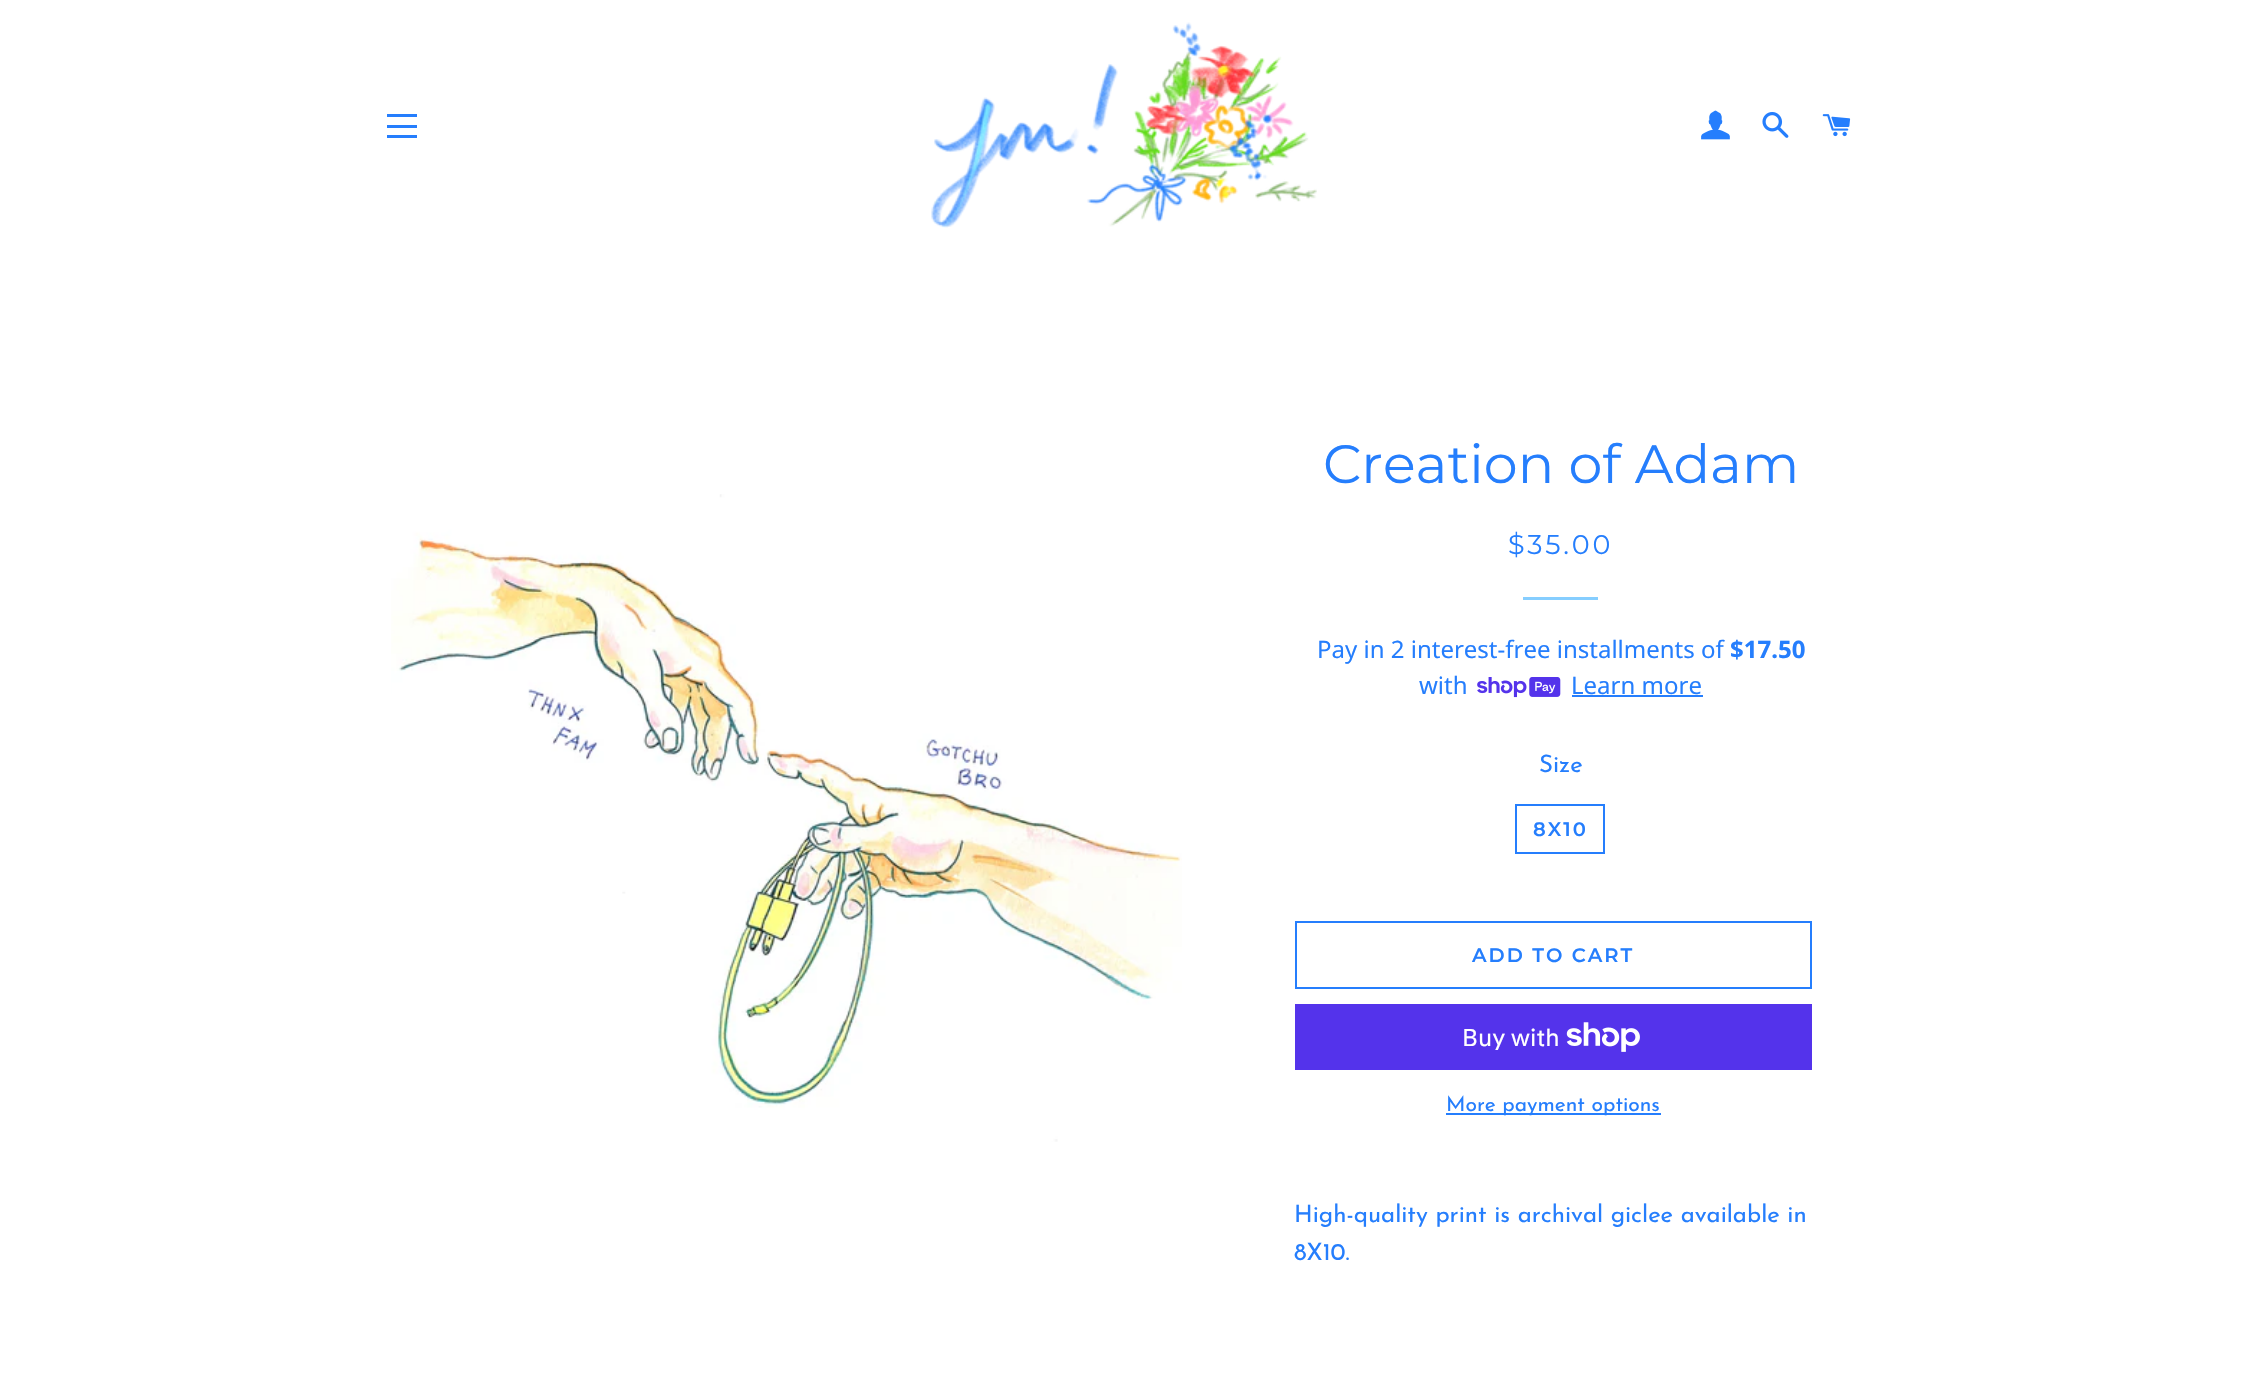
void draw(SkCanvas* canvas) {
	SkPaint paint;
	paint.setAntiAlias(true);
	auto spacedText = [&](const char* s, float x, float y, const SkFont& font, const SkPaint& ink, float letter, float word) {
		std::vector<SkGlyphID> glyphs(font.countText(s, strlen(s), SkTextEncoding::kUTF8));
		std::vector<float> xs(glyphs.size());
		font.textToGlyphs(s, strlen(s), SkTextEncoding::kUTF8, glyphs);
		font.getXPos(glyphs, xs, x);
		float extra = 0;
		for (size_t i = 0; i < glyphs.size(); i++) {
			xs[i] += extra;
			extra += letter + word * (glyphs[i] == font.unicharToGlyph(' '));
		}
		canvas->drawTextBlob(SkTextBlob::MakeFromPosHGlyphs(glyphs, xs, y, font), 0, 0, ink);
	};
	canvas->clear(0xffffffff);
	paint.setColor(0xff257efd);
	canvas->drawRect(SkRect::MakeXYWH(387, 114, 30, 3), paint);
	canvas->drawRect(SkRect::MakeXYWH(387, 125, 30, 3), paint);
	canvas->drawRect(SkRect::MakeXYWH(387, 135, 30, 3), paint);
	canvas->drawImageRect(SkImages::DeferredFromEncodedData(SkData::MakeFromFileName("img1.png")), SkRect::MakeXYWH(931, 22, 386, 206), SkSamplingOptions());
	canvas->drawImageRect(SkImages::DeferredFromEncodedData(SkData::MakeFromFileName("img2.png")), SkRect::MakeXYWH(1701, 110, 29, 30), SkSamplingOptions());
	canvas->drawImageRect(SkImages::DeferredFromEncodedData(SkData::MakeFromFileName("img3.png")), SkRect::MakeXYWH(1762, 112, 27, 26), SkSamplingOptions());
	canvas->drawImageRect(SkImages::DeferredFromEncodedData(SkData::MakeFromFileName("img4.png")), SkRect::MakeXYWH(1822, 114, 29, 23), SkSamplingOptions());
	canvas->drawImageRect(SkImages::DeferredFromEncodedData(SkData::MakeFromFileName("img5.png")), SkRect::MakeXYWH(391, 494, 791, 648), SkSamplingOptions());
	SkFont f1(fontMgr->matchFamilyStyle("Montserrat", SkFontStyle::Normal()), 54);
	f1.setSubpixel(true);
	canvas->drawString("Creation of Adam", 1323, 483, f1, paint);
	SkFont f2(fontMgr->matchFamilyStyle("Montserrat", SkFontStyle::Normal()), 27);
	f2.setSubpixel(true);
	spacedText("$35.00", 1508, 554, f2, paint, 2.75, 0);
	paint.setColor(0xff86ceff);
	canvas->drawRect(SkRect::MakeXYWH(1523, 597, 75, 3), paint);
	SkFont f3(fontMgr->matchFamilyStyle("Noto Sans", SkFontStyle::Normal()), 24);
	f3.setSubpixel(true);
	paint.setColor(0xff257efd);
	canvas->drawString("Pay in 2 interest-free installments of", 1317, 658, f3, paint);
	SkFont f4(fontMgr->matchFamilyStyle("Noto Sans", SkFontStyle::Bold()), 24);
	f4.setSubpixel(true);
	canvas->drawString("$17.50", 1730, 658, f4, paint);
	canvas->drawString("with", 1419, 694, f3, paint);
	canvas->drawImageRect(SkImages::DeferredFromEncodedData(SkData::MakeFromFileName("img6.png")), SkRect::MakeXYWH(1477, 677, 84, 21), SkSamplingOptions());
	canvas->drawString("Learn more", 1571, 694, f3, paint);
	canvas->drawRect(SkRect::MakeXYWH(1572, 695, 131, 2), paint);
	SkFont f5(fontMgr->matchFamilyStyle("Josefin Sans", SkFontStyle(100, SkFontStyle::kNormal_Width, SkFontStyle::kUpright_Slant)), 24);
	f5.setSubpixel(true);
	canvas->drawString("Size", 1539, 772, f5, paint);
	paint.setStroke(true);
	paint.setStrokeWidth(2);
	canvas->drawRect(SkRect::MakeXYWH(1516, 805, 88, 48), paint);
	SkFont f6(fontMgr->matchFamilyStyle("Montserrat", SkFontStyle(600, SkFontStyle::kNormal_Width, SkFontStyle::kUpright_Slant)), 19.5);
	f6.setSubpixel(true);
	paint.setStroke(false);
	spacedText("8X10", 1533, 836, f6, paint, 2, 0);
	paint.setStroke(true);
	canvas->drawRect(SkRect::MakeXYWH(1296, 922, 515, 66), paint);
	paint.setStroke(false);
	spacedText("ADD TO CART", 1472, 962, f6, paint, 2, 0);
	paint.setColor(0xff5433eb);
	canvas->drawRect(SkRect::MakeXYWH(1295, 1004, 517, 66), paint);
	SkFont f7(fontMgr->matchFamilyStyle("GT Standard", SkFontStyle::Normal()), 24);
	f7.setSubpixel(true);
	paint.setColor(0xffffffff);
	canvas->drawString("Buy with", 1462, 1046, f7, paint);
	canvas->drawImageRect(SkImages::DeferredFromEncodedData(SkData::MakeFromFileName("img7.png")), SkRect::MakeXYWH(1566, 1022, 74, 30), SkSamplingOptions());
	paint.setColor(0xff257efd);
	canvas->drawRect(SkRect::MakeXYWH(1446, 1113, 215, 2), paint);
	SkFont f8(fontMgr->matchFamilyStyle("Josefin Sans", SkFontStyle(100, SkFontStyle::kNormal_Width, SkFontStyle::kUpright_Slant)), 21);
	f8.setSubpixel(true);
	canvas->drawString("More payment options", 1446, 1111, f8, paint);
	canvas->drawString("High-quality print is archival giclee available in", 1294, 1222, f5, paint);
	canvas->drawString("8X10.", 1294, 1260, f5, paint);
}
